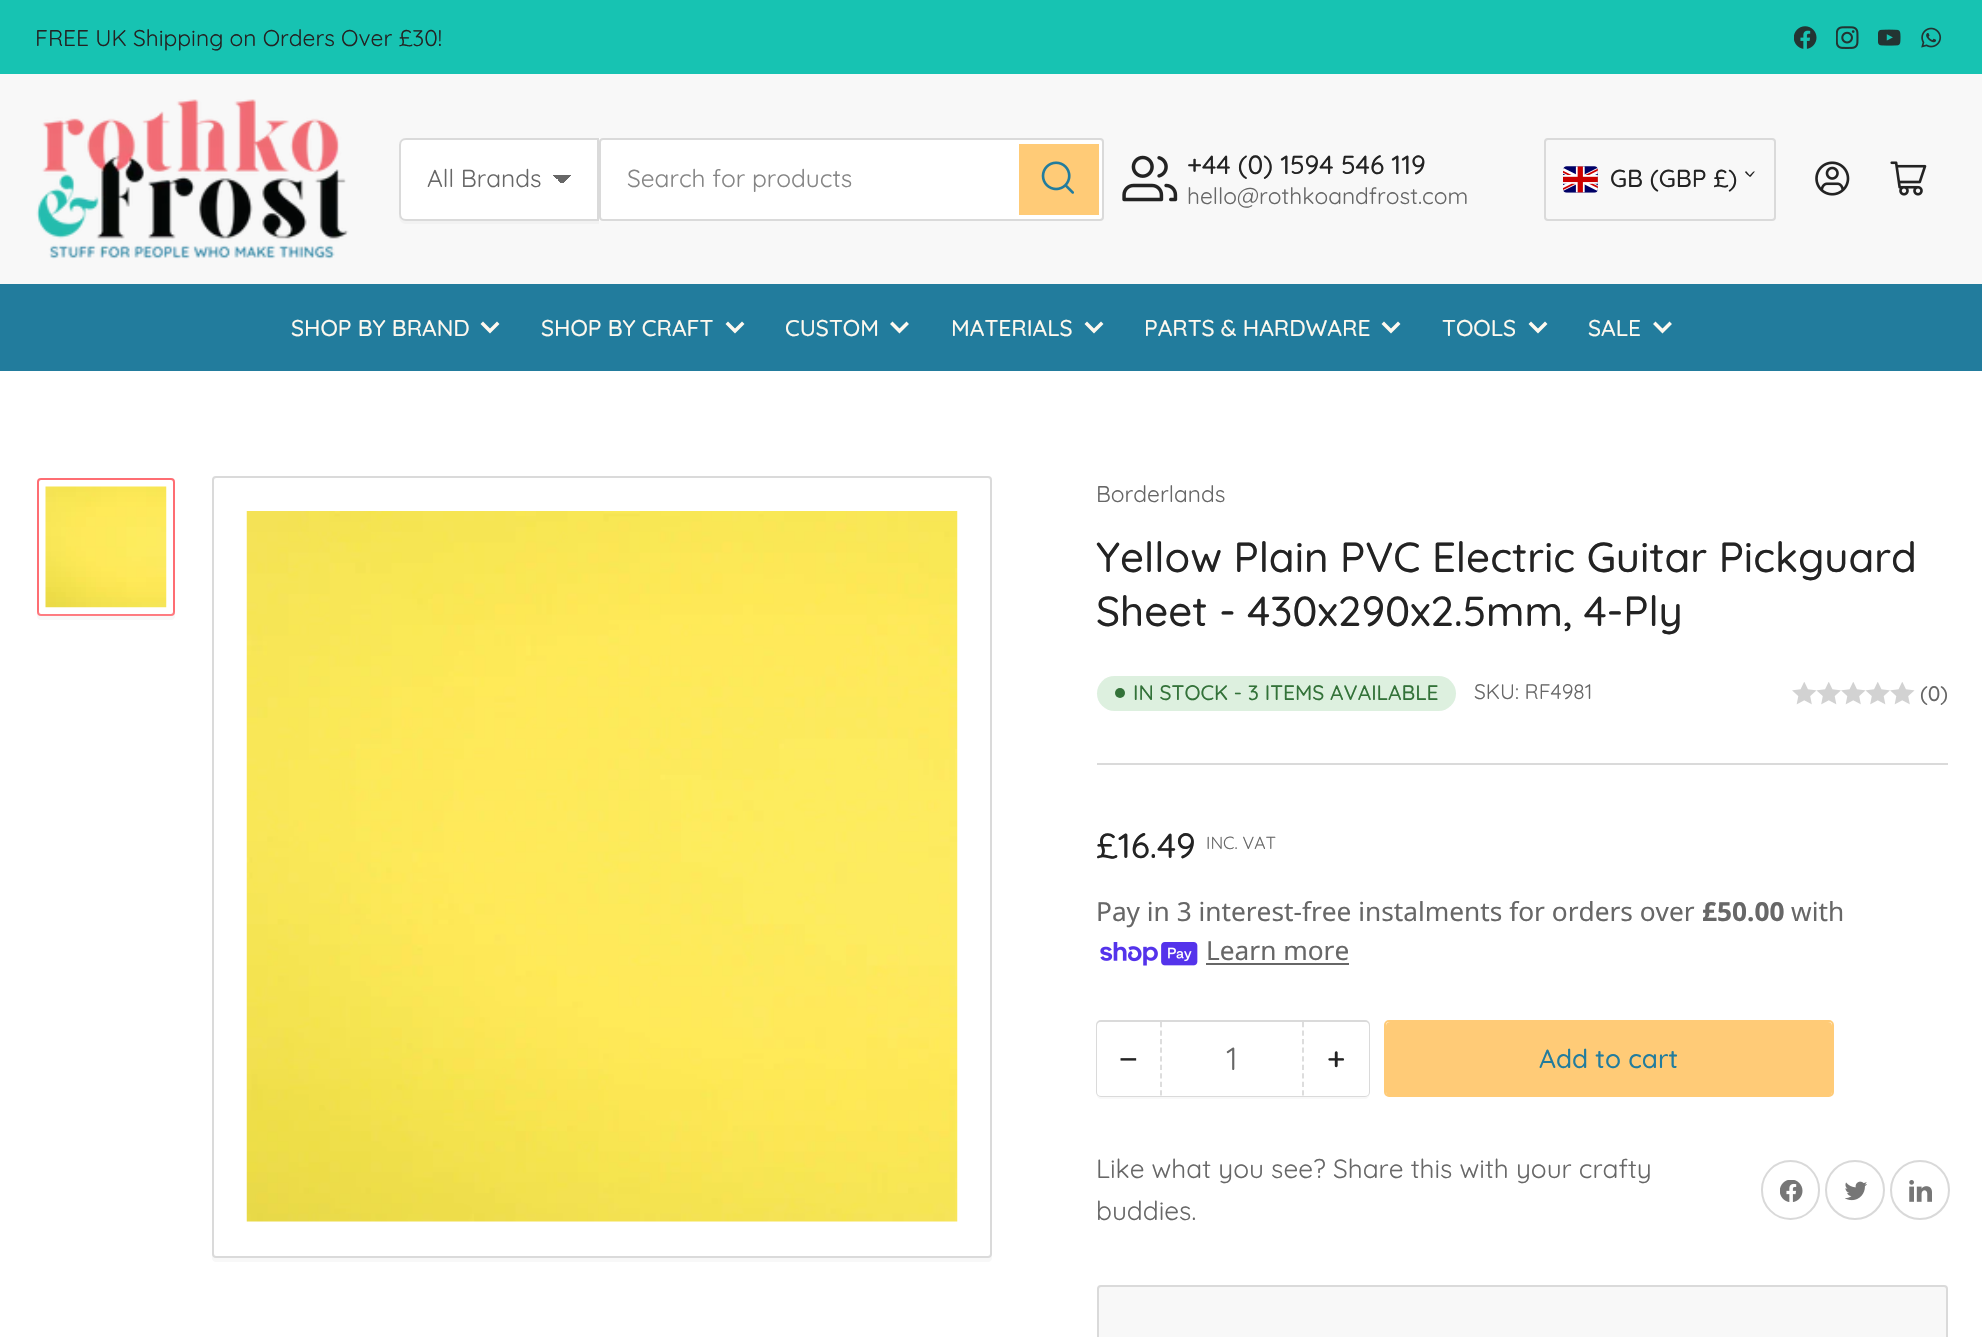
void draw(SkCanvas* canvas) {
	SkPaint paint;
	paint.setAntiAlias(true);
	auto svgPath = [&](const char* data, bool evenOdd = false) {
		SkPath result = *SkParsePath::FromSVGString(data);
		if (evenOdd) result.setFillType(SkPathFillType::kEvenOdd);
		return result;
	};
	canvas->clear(0xffffffff);
	paint.setColor(0xff17c3b2);
	canvas->drawRect(SkRect::MakeXYWH(0, 0, 1982, 74), paint);
	SkFont f1(fontMgr->matchFamilyStyle("Quicksand", SkFontStyle::Normal()), 22.75);
	f1.setSubpixel(true);
	paint.setColor(0xff232323);
	canvas->drawString("FREE UK Shipping on Orders Over £30!", 35, 46, f1, paint);
	canvas->drawImageRect(SkImages::DeferredFromEncodedData(SkData::MakeFromFileName("img1.png")), SkRect::MakeXYWH(1794, 26, 23, 23), SkSamplingOptions());
	canvas->drawImageRect(SkImages::DeferredFromEncodedData(SkData::MakeFromFileName("img2.png")), SkRect::MakeXYWH(1836, 26, 23, 23), SkSamplingOptions());
	canvas->drawImageRect(SkImages::DeferredFromEncodedData(SkData::MakeFromFileName("img3.png")), SkRect::MakeXYWH(1878, 29, 23, 17), SkSamplingOptions());
	canvas->drawImageRect(SkImages::DeferredFromEncodedData(SkData::MakeFromFileName("img4.png")), SkRect::MakeXYWH(1921, 27, 21, 21), SkSamplingOptions());
	paint.setColor(0xfff8f8f8);
	canvas->drawRect(SkRect::MakeXYWH(0, 74, 1982, 210), paint);
	canvas->drawImageRect(SkImages::DeferredFromEncodedData(SkData::MakeFromFileName("img5.png")), SkRect::MakeXYWH(36, 99, 313, 160), SkSamplingOptions());
	paint.setColor(0xffffffff);
	canvas->drawRoundRect(SkRect::MakeXYWH(399, 138, 705, 83), 7, 7, paint);
	paint.setStroke(true);
	paint.setStrokeWidth(2);
	paint.setColor(0xffdadada);
	canvas->drawRoundRect(SkRect::MakeXYWH(400, 139, 198, 81), 6, 6, paint);
	paint.setStroke(false);
	paint.setColor(0x33dadada);
	canvas->drawPath(svgPath("M399 214V217C399 221 402 224 406 224H599V142H598V220H406C402 220 399 217 399 214Z"), paint);
	paint.setColor(0xffffffff);
	canvas->drawPath(svgPath("M406 138H599V221H406C402 221 399 218 399 214V145C399 141 402 138 406 138Z"), paint);
	{
		const SkColor colors[] = {0xff676767, 0xffffffff};
		const float stops[] = {0.5, 0.5};
		const SkPoint ends[] = {{562, 175}, {571, 184}};
		paint.setShader(SkGradientShader::MakeLinear(ends, colors, stops, 2, SkTileMode::kClamp));
		paint.setAlpha(255);
	}
	canvas->drawRect(SkRect::MakeXYWH(562, 175, 9, 8), paint);
	{
		const SkColor colors[] = {0xffffffff, 0xff676767};
		const float stops[] = {0.5, 0.5};
		const SkPoint ends[] = {{553, 184}, {562, 175}};
		paint.setShader(SkGradientShader::MakeLinear(ends, colors, stops, 2, SkTileMode::kClamp));
		paint.setAlpha(255);
	}
	canvas->drawRect(SkRect::MakeXYWH(553, 175, 9, 8), paint);
	paint.setStroke(true);
	paint.setShader(nullptr);
	paint.setColor(0xffdadada);
	canvas->drawPath(svgPath("M406 139H598V220H406C402.5 220 400 217.5 400 214V145C400 141.5 402.5 139 406 139Z"), paint);
	SkFont f2(fontMgr->matchFamilyStyle("Quicksand", SkFontStyle::Normal()), 24.5);
	f2.setSubpixel(true);
	paint.setStroke(false);
	paint.setColor(0xff676767);
	canvas->drawString("All Brands", 427, 187, f2, paint);
	paint.setColor(0xffffffff);
	canvas->drawRoundRect(SkRect::MakeXYWH(600, 139, 503, 81), 3, 3, paint);
	paint.setStroke(true);
	paint.setColor(0xffdadada);
	canvas->drawRoundRect(SkRect::MakeXYWH(600, 139, 503, 81), 3, 3, paint);
	paint.setStroke(false);
	paint.setColor(0xff858585);
	canvas->drawString("Search for products", 627, 187, f2, paint);
	paint.setStroke(true);
	paint.setColor(0xffffcb77);
	canvas->drawRect(SkRect::MakeXYWH(1020, 145, 78, 69), paint);
	paint.setStroke(false);
	canvas->drawRect(SkRect::MakeXYWH(1021, 146, 76, 67), paint);
	canvas->drawImageRect(SkImages::DeferredFromEncodedData(SkData::MakeFromFileName("img6.png")), SkRect::MakeXYWH(1041, 161, 33, 33), SkSamplingOptions());
	canvas->drawImageRect(SkImages::DeferredFromEncodedData(SkData::MakeFromFileName("img7.png")), SkRect::MakeXYWH(1122, 155, 56, 47), SkSamplingOptions());
	SkFont f3(fontMgr->matchFamilyStyle("Quicksand", SkFontStyle(500, SkFontStyle::kNormal_Width, SkFontStyle::kUpright_Slant)), 26.25);
	f3.setSubpixel(true);
	paint.setColor(0xff232323);
	canvas->drawString("+44 (0) 1594 546 119", 1187, 174, f3, paint);
	paint.setColor(0xff676767);
	canvas->drawString("hello@rothkoandfrost.com", 1187, 204, f1, paint);
	paint.setStroke(true);
	paint.setColor(0xffdadada);
	canvas->drawRoundRect(SkRect::MakeXYWH(1545, 139, 230, 81), 3, 3, paint);
	canvas->drawImageRect(SkImages::DeferredFromEncodedData(SkData::MakeFromFileName("img8.png")), SkRect::MakeXYWH(1563, 166, 35, 27), SkSamplingOptions());
	SkFont f4(fontMgr->matchFamilyStyle("Quicksand", SkFontStyle(500, SkFontStyle::kNormal_Width, SkFontStyle::kUpright_Slant)), 24.5);
	f4.setSubpixel(true);
	paint.setStroke(false);
	paint.setColor(0xff232323);
	canvas->drawString("GB (GBP £)", 1610, 187, f4, paint);
	canvas->drawPath(svgPath("M1746.5 171.5L1749.5 175C1751 176 1751 177 1749.5 176.5L1746.5 174C1746.5 173.5 1745 172.5 1745 172C1745.5 171.5 1746 171 1746.5 171.5Z"), paint);
	canvas->drawPath(svgPath("M1749.5 175.5L1753 172C1754 171 1755 171 1754.5 172L1752 175C1751.5 175.5 1751 177 1750 176.5C1749.5 176.5 1749 176 1749.5 175.5Z"), paint);
	canvas->drawImageRect(SkImages::DeferredFromEncodedData(SkData::MakeFromFileName("img9.png")), SkRect::MakeXYWH(1815, 161, 35, 35), SkSamplingOptions());
	canvas->drawImageRect(SkImages::DeferredFromEncodedData(SkData::MakeFromFileName("img10.png")), SkRect::MakeXYWH(1890, 161, 37, 35), SkSamplingOptions());
	paint.setColor(0xff227c9d);
	canvas->drawRect(SkRect::MakeXYWH(0, 284, 1982, 87), paint);
	SkFont f5(fontMgr->matchFamilyStyle("Quicksand", SkFontStyle(500, SkFontStyle::kNormal_Width, SkFontStyle::kUpright_Slant)), 22.75);
	f5.setSubpixel(true);
	paint.setColor(0xfffef9ef);
	canvas->drawString("SHOP BY BRAND", 291, 336, f5, paint);
	paint.setStroke(true);
	paint.setStrokeWidth(3.5);
	paint.setStrokeCap(SkPaint::kSquare_Cap);
	canvas->drawPath(svgPath("M497 324L490 331L483 324"), paint);
	paint.setStroke(false);
	canvas->drawString("SHOP BY CRAFT", 541, 336, f5, paint);
	paint.setStroke(true);
	canvas->drawPath(svgPath("M742 324L735 331L728 324"), paint);
	paint.setStroke(false);
	canvas->drawString("CUSTOM", 785, 336, f5, paint);
	paint.setStroke(true);
	canvas->drawPath(svgPath("M906.5 324L899.5 331L892.5 324"), paint);
	paint.setStroke(false);
	canvas->drawString("MATERIALS", 951, 336, f5, paint);
	paint.setStroke(true);
	canvas->drawPath(svgPath("M1101 324L1094 331L1087 324"), paint);
	paint.setStroke(false);
	canvas->drawString("PARTS & HARDWARE", 1144, 336, f5, paint);
	paint.setStroke(true);
	canvas->drawPath(svgPath("M1398 324L1391 331L1384 324"), paint);
	paint.setStroke(false);
	canvas->drawString("TOOLS", 1442, 336, f5, paint);
	paint.setStroke(true);
	canvas->drawPath(svgPath("M1545 324L1538 331L1531 324"), paint);
	paint.setStroke(false);
	canvas->drawString("SALE", 1588, 336, f5, paint);
	paint.setStroke(true);
	canvas->drawPath(svgPath("M1669.5 324L1662.5 331L1655.5 324"), paint);
	paint.setStroke(false);
	paint.setColor(0xfff8f8f8);
	canvas->drawPath(svgPath("M37 614V616C37 618 39 620 41 620H171C173 620 175 618 175 616V612C175 614 173 616 172 616H40C39 616 38 615 37 614Z"), paint);
	paint.setStroke(true);
	paint.setStrokeWidth(2);
	paint.setStrokeCap(SkPaint::kButt_Cap);
	paint.setColor(0xfffe6d73);
	canvas->drawRoundRect(SkRect::MakeXYWH(38, 479, 136, 136), 3, 3, paint);
	canvas->drawImageRect(SkImages::DeferredFromEncodedData(SkData::MakeFromFileName("img11.png")), SkRect::MakeXYWH(45, 486, 122, 122), SkSamplingOptions());
	paint.setStroke(false);
	{
		const SkColor colors[] = {0xffffffff, 0x00ffffff};
		const float stops[] = {0, 1};
		const SkPoint ends[] = {{106, 670}, {106, 609}};
		paint.setShader(SkGradientShader::MakeLinear(ends, colors, stops, 2, SkTileMode::kClamp));
		paint.setAlpha(255);
	}
	canvas->drawRect(SkRect::MakeXYWH(37, 610, 138, 6), paint);
	paint.setShader(nullptr);
	paint.setColor(0xfff8f8f8);
	canvas->drawPath(svgPath("M212 1256V1258C212 1260 214 1262 216 1262H988C990 1262 992 1260 992 1258V1256C991 1257 990 1258 989 1258H215C214 1258 213 1257 212 1256Z"), paint);
	paint.setStroke(true);
	paint.setColor(0xffdadada);
	canvas->drawRoundRect(SkRect::MakeXYWH(213, 477, 778, 780), 3, 3, paint);
	canvas->drawImageRect(SkImages::DeferredFromEncodedData(SkData::MakeFromFileName("img12.png")), SkRect::MakeXYWH(246, 511, 712, 711), SkSamplingOptions());
	paint.setStroke(false);
	canvas->drawRect(SkRect::MakeXYWH(1097, 763, 851, 2), paint);
	paint.setColor(0xff676767);
	canvas->drawString("Borderlands", 1096, 502, f1, paint);
	SkFont f6(fontMgr->matchFamilyStyle("Quicksand", SkFontStyle(500, SkFontStyle::kNormal_Width, SkFontStyle::kUpright_Slant)), 42);
	f6.setSubpixel(true);
	paint.setColor(0xff232323);
	canvas->drawString("Yellow Plain PVC Electric Guitar Pickguard", 1096, 572, f6, paint);
	canvas->drawString("Sheet - 430x290x2.5mm, 4-Ply", 1096, 626, f6, paint);
	paint.setColor(0xffddf0df);
	canvas->drawRoundRect(SkRect::MakeXYWH(1097, 676, 359, 35), 17.5, 17.5, paint);
	paint.setColor(0xff337239);
	canvas->drawCircle(1120, 693, 5, paint);
	SkFont f7(fontMgr->matchFamilyStyle("Quicksand", SkFontStyle(500, SkFontStyle::kNormal_Width, SkFontStyle::kUpright_Slant)), 21);
	f7.setSubpixel(true);
	canvas->drawString("IN STOCK - 3 ITEMS AVAILABLE", 1133, 700, f7, paint);
	SkFont f8(fontMgr->matchFamilyStyle("Quicksand", SkFontStyle::Normal()), 21);
	f8.setSubpixel(true);
	paint.setColor(0xff676767);
	canvas->drawString("SKU: RF4981", 1474, 699, f8, paint);
	canvas->drawImageRect(SkImages::DeferredFromEncodedData(SkData::MakeFromFileName("img13.png")), SkRect::MakeXYWH(1792, 682, 25, 23), SkSamplingOptions());
	canvas->drawImageRect(SkImages::DeferredFromEncodedData(SkData::MakeFromFileName("img14.png")), SkRect::MakeXYWH(1816, 682, 25, 23), SkSamplingOptions());
	canvas->drawImageRect(SkImages::DeferredFromEncodedData(SkData::MakeFromFileName("img13.png")), SkRect::MakeXYWH(1841, 682, 25, 23), SkSamplingOptions());
	canvas->drawImageRect(SkImages::DeferredFromEncodedData(SkData::MakeFromFileName("img14.png")), SkRect::MakeXYWH(1865, 682, 25, 23), SkSamplingOptions());
	canvas->drawImageRect(SkImages::DeferredFromEncodedData(SkData::MakeFromFileName("img13.png")), SkRect::MakeXYWH(1890, 682, 25, 23), SkSamplingOptions());
	canvas->drawString("(0)", 1920, 701, f7, paint);
	SkFont f9(fontMgr->matchFamilyStyle("Quicksand", SkFontStyle(500, SkFontStyle::kNormal_Width, SkFontStyle::kUpright_Slant)), 35);
	f9.setSubpixel(true);
	paint.setColor(0xff232323);
	canvas->drawString("£16.49", 1096, 858, f9, paint);
	SkFont f10(fontMgr->matchFamilyStyle("Quicksand", SkFontStyle::Normal()), 17.5);
	f10.setSubpixel(true);
	paint.setColor(0xff676767);
	canvas->drawString("INC. VAT", 1206, 849, f10, paint);
	SkFont f11(fontMgr->matchFamilyStyle("Noto Sans", SkFontStyle::Normal()), 26.25);
	f11.setSubpixel(true);
	canvas->drawString("Pay in 3 interest-free instalments for orders over", 1096, 921, f11, paint);
	SkFont f12(fontMgr->matchFamilyStyle("Noto Sans", SkFontStyle::Bold()), 26.25);
	f12.setSubpixel(true);
	canvas->drawString("£50.00", 1702, 921, f12, paint);
	canvas->drawString("with", 1791, 921, f11, paint);
	canvas->drawImageRect(SkImages::DeferredFromEncodedData(SkData::MakeFromFileName("img15.png")), SkRect::MakeXYWH(1100, 942, 98, 24), SkSamplingOptions());
	canvas->drawString("Learn more", 1206, 960, f11, paint);
	canvas->drawRect(SkRect::MakeXYWH(1206, 963, 143, 2), paint);
	paint.setColor(0xfff8f8f8);
	canvas->drawPath(svgPath("M1097 1029V1095C1097 1097 1099 1099 1101 1099H1365C1367 1099 1369 1097 1369 1095V1030L1368 1028V1092C1368 1094 1367 1096 1365 1096H1101C1099 1096 1097 1094 1097 1092Z"), paint);
	paint.setStroke(true);
	paint.setColor(0xffdadada);
	canvas->drawRoundRect(SkRect::MakeXYWH(1097, 1021, 272, 75), 4, 4, paint);
	paint.setStroke(false);
	paint.setColor(0xffffffff);
	canvas->drawRoundRect(SkRect::MakeXYWH(1097, 1022, 272, 74), 4, 4, paint);
	SkFont f13(fontMgr->matchFamilyStyle("Liberation Sans", SkFontStyle::Normal()), 32);
	f13.setSubpixel(true);
	paint.setColor(0xff232323);
	canvas->drawString("−", 1119, 1070, f13, paint);
	paint.setStroke(true);
	paint.setStrokeWidth(1.8);
	paint.setColor(0xffdadada);
	paint.setPathEffect(SkDashPathEffect::Make({{5.25f, 3.29f}}, 0));
	canvas->drawPath(svgPath("M1303 1022V1095.5"), paint);
	paint.setPathEffect(nullptr);
	paint.setPathEffect(SkDashPathEffect::Make({{5.25f, 3.29f}}, 0));
	canvas->drawPath(svgPath("M1161 1022V1095.5"), paint);
	paint.setPathEffect(nullptr);
	SkFont f14(fontMgr->matchFamilyStyle("Quicksand", SkFontStyle::Normal()), 32);
	f14.setSubpixel(true);
	paint.setStroke(false);
	paint.setColor(0xff676767);
	canvas->drawString("1", 1226, 1070, f14, paint);
	SkFont f15(fontMgr->matchFamilyStyle("Quicksand", SkFontStyle(500, SkFontStyle::kNormal_Width, SkFontStyle::kUpright_Slant)), 32);
	f15.setSubpixel(true);
	paint.setColor(0xff232323);
	canvas->drawString("+", 1327, 1070, f15, paint);
	paint.setStroke(true);
	paint.setStrokeWidth(2);
	paint.setColor(0xffffcb77);
	canvas->drawRoundRect(SkRect::MakeXYWH(1385, 1021, 448, 75), 4, 4, paint);
	paint.setStroke(false);
	canvas->drawRoundRect(SkRect::MakeXYWH(1386, 1022, 446, 74), 4, 4, paint);
	paint.setColor(0xff227c9d);
	canvas->drawString("Add to cart", 1539, 1068, f3, paint);
	SkFont f16(fontMgr->matchFamilyStyle("Quicksand", SkFontStyle::Normal()), 26.25);
	f16.setSubpixel(true);
	paint.setColor(0xff676767);
	canvas->drawString("Like what you see? Share this with your crafty", 1096, 1178, f16, paint);
	canvas->drawString("buddies.", 1096, 1220, f16, paint);
	paint.setStroke(true);
	paint.setColor(0xffd9d9d9);
	canvas->drawRoundRect(SkRect::MakeXYWH(1762, 1161, 57, 58), 28.5, 28.5, paint);
	canvas->drawImageRect(SkImages::DeferredFromEncodedData(SkData::MakeFromFileName("img16.png")), SkRect::MakeXYWH(1780, 1180, 23, 22), SkSamplingOptions());
	canvas->drawCircle(1855, 1190, 29, paint);
	canvas->drawImageRect(SkImages::DeferredFromEncodedData(SkData::MakeFromFileName("img17.png")), SkRect::MakeXYWH(1845, 1181, 22, 20), SkSamplingOptions());
	canvas->drawCircle(1920, 1190, 29, paint);
	canvas->drawImageRect(SkImages::DeferredFromEncodedData(SkData::MakeFromFileName("img18.png")), SkRect::MakeXYWH(1909, 1180, 23, 22), SkSamplingOptions());
	paint.setStroke(false);
	paint.setColor(0xfff8f8f8);
	canvas->drawRoundRect(SkRect::MakeXYWH(1098, 1286, 849, 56), 3, 3, paint);
	paint.setStroke(true);
	paint.setColor(0xffdadada);
	canvas->drawRoundRect(SkRect::MakeXYWH(1098, 1286, 849, 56), 3, 3, paint);
}
